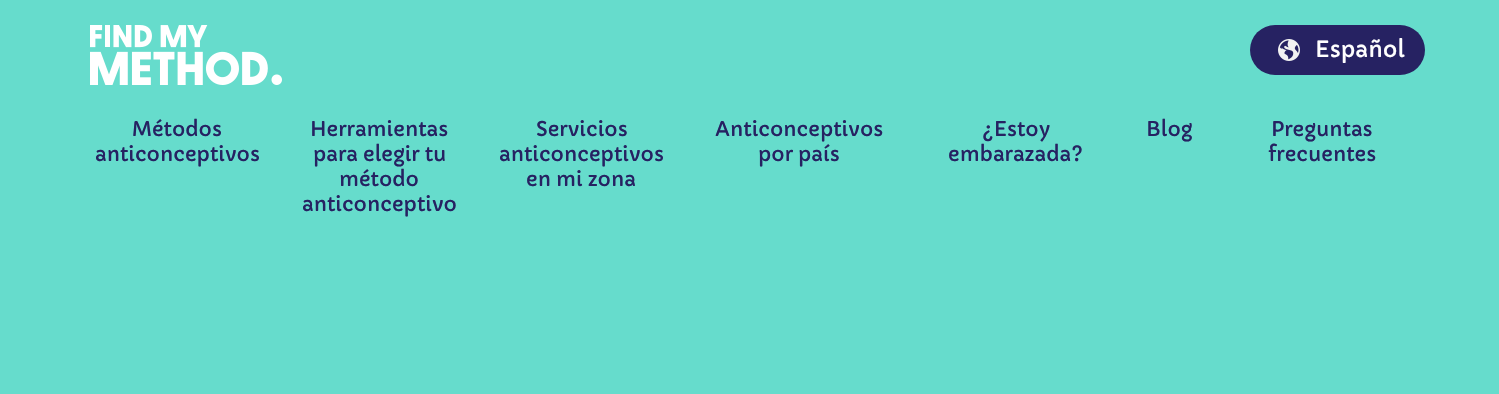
void draw(SkCanvas* canvas) {
	SkPaint paint;
	paint.setAntiAlias(true);
	canvas->clear(0xff66dccc);
	canvas->drawImageRect(SkImages::DeferredFromEncodedData(SkData::MakeFromFileName("img1.png")), SkRect::MakeXYWH(90, 25, 192, 60), SkSamplingOptions());
	paint.setColor(0xff262262);
	canvas->drawRoundRect(SkRect::MakeXYWH(1250, 25, 175, 50), 25, 25, paint);
	canvas->drawImageRect(SkImages::DeferredFromEncodedData(SkData::MakeFromFileName("img2.png")), SkRect::MakeXYWH(1278, 39, 22, 22), SkSamplingOptions());
	SkFont f1(fontMgr->matchFamilyStyle("Capriola", SkFontStyle::Normal()), 22);
	f1.setSubpixel(true);
	paint.setColor(0xffffffff);
	canvas->drawString("Español", 1315, 57, f1, paint);
	SkFont f2(fontMgr->matchFamilyStyle("Capriola", SkFontStyle::Normal()), 20);
	f2.setSubpixel(true);
	paint.setColor(0xff262262);
	canvas->drawString("Métodos", 132, 136, f2, paint);
	canvas->drawString("anticonceptivos", 95, 161, f2, paint);
	canvas->drawString("Herramientas", 310, 136, f2, paint);
	canvas->drawString("para elegir tu", 313, 161, f2, paint);
	canvas->drawString("método", 339, 186, f2, paint);
	canvas->drawString("anticonceptivo", 302, 211, f2, paint);
	canvas->drawString("Servicios", 536, 136, f2, paint);
	canvas->drawString("anticonceptivos", 499, 161, f2, paint);
	canvas->drawString("en mi zona", 526, 186, f2, paint);
	canvas->drawString("Anticonceptivos", 715, 136, f2, paint);
	canvas->drawString("por país", 758, 161, f2, paint);
	canvas->drawString("¿Estoy", 982, 136, f2, paint);
	canvas->drawString("embarazada?", 948, 161, f2, paint);
	canvas->drawString("Blog", 1146, 136, f2, paint);
	canvas->drawString("Preguntas", 1271, 136, f2, paint);
	canvas->drawString("frecuentes", 1268, 161, f2, paint);
}
